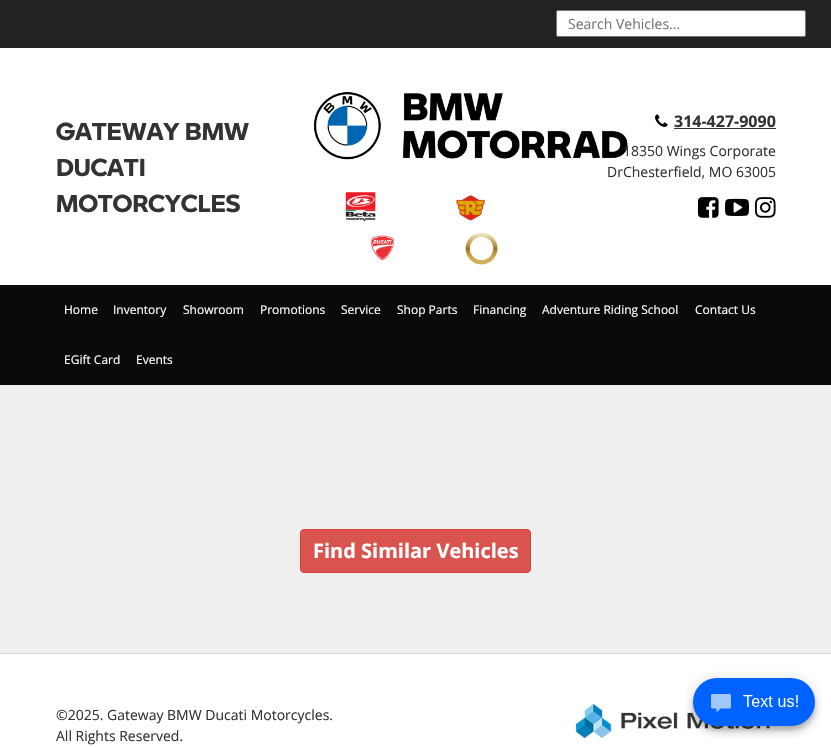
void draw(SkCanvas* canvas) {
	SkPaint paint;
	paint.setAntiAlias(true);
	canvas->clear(0xffffffff);
	paint.setColor(0xff222222);
	canvas->drawRect(SkRect::MakeXYWH(0, 0, 831, 48), paint);
	paint.setColor(0xffffffff);
	canvas->drawRoundRect(SkRect::MakeXYWH(556.5, 10.5, 249, 26), 1.5, 1.5, paint);
	paint.setStroke(true);
	paint.setStrokeWidth(1);
	paint.setColor(0xff767676);
	canvas->drawRoundRect(SkRect::MakeXYWH(556.5, 10.5, 249, 26), 1.5, 1.5, paint);
	SkFont f1(fontMgr->matchFamilyStyle("Open Sans", SkFontStyle::Normal()), 14);
	f1.setSubpixel(true);
	paint.setStroke(false);
	paint.setColor(0xff757575);
	canvas->drawString("Search Vehicles...", 568, 29, f1, paint);
	SkFont f2(fontMgr->matchFamilyStyle("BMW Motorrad", SkFontStyle::Bold()), 24);
	f2.setSubpixel(true);
	paint.setColor(0xff333333);
	canvas->drawString("GATEWAY BMW", 56, 140, f2, paint);
	canvas->drawString("DUCATI", 56, 176, f2, paint);
	canvas->drawString("MOTORCYCLES", 56, 212, f2, paint);
	canvas->drawImageRect(SkImages::DeferredFromEncodedData(SkData::MakeFromFileName("img1.png")), SkRect::MakeXYWH(314, 91, 314, 69), SkSamplingOptions());
	canvas->drawImageRect(SkImages::DeferredFromEncodedData(SkData::MakeFromFileName("img2.png")), SkRect::MakeXYWH(345, 192, 31, 29), SkSamplingOptions());
	canvas->drawImageRect(SkImages::DeferredFromEncodedData(SkData::MakeFromFileName("img3.png")), SkRect::MakeXYWH(456, 195, 29, 26), SkSamplingOptions());
	canvas->drawImageRect(SkImages::DeferredFromEncodedData(SkData::MakeFromFileName("img4.png")), SkRect::MakeXYWH(370, 235, 24, 26), SkSamplingOptions());
	canvas->drawImageRect(SkImages::DeferredFromEncodedData(SkData::MakeFromFileName("img5.png")), SkRect::MakeXYWH(465, 232, 33, 33), SkSamplingOptions());
	canvas->drawImageRect(SkImages::DeferredFromEncodedData(SkData::MakeFromFileName("img6.png")), SkRect::MakeXYWH(655, 114, 13, 13), SkSamplingOptions());
	SkFont f3(fontMgr->matchFamilyStyle("Open Sans", SkFontStyle::Bold()), 16);
	f3.setSubpixel(true);
	canvas->drawString("314-427-9090", 674, 127, f3, paint);
	canvas->drawRect(SkRect::MakeXYWH(674, 128, 102, 1), paint);
	canvas->drawString("18350 Wings Corporate", 623, 156, f1, paint);
	canvas->drawString("DrChesterfield, MO 63005", 607, 177, f1, paint);
	canvas->drawImageRect(SkImages::DeferredFromEncodedData(SkData::MakeFromFileName("img7.png")), SkRect::MakeXYWH(698, 197, 21, 21), SkSamplingOptions());
	canvas->drawImageRect(SkImages::DeferredFromEncodedData(SkData::MakeFromFileName("img8.png")), SkRect::MakeXYWH(725, 198, 24, 18), SkSamplingOptions());
	canvas->drawImageRect(SkImages::DeferredFromEncodedData(SkData::MakeFromFileName("img9.png")), SkRect::MakeXYWH(755, 197, 21, 21), SkSamplingOptions());
	paint.setColor(0xff0a0a0a);
	canvas->drawRect(SkRect::MakeXYWH(0, 285, 831, 100), paint);
	SkFont f4(fontMgr->matchFamilyStyle("Open Sans", SkFontStyle::Normal()), 12);
	f4.setSubpixel(true);
	paint.setColor(0xffffffff);
	canvas->drawString("Home", 64, 314, f4, paint);
	canvas->drawString("Inventory", 113, 314, f4, paint);
	canvas->drawString("Showroom", 183, 314, f4, paint);
	canvas->drawString("Promotions", 260, 314, f4, paint);
	canvas->drawString("Service", 341, 314, f4, paint);
	canvas->drawString("Shop Parts", 397, 314, f4, paint);
	canvas->drawString("Financing", 473, 314, f4, paint);
	canvas->drawString("Adventure Riding School", 542, 314, f4, paint);
	canvas->drawString("Contact Us", 695, 314, f4, paint);
	canvas->drawString("EGift Card", 64, 364, f4, paint);
	canvas->drawString("Events", 136, 364, f4, paint);
	paint.setColor(0xffefefef);
	canvas->drawRect(SkRect::MakeXYWH(0, 385, 831, 268), paint);
	paint.setColor(0xffd9534f);
	canvas->drawRoundRect(SkRect::MakeXYWH(300.5, 529.5, 230, 43), 3.5, 3.5, paint);
	paint.setStroke(true);
	paint.setColor(0xffd43f3a);
	canvas->drawRoundRect(SkRect::MakeXYWH(300.5, 529.5, 230, 43), 3.5, 3.5, paint);
	SkFont f5(fontMgr->matchFamilyStyle("Open Sans", SkFontStyle::Bold()), 20);
	f5.setSubpixel(true);
	paint.setStroke(false);
	paint.setColor(0xffffffff);
	canvas->drawString("Find Similar Vehicles", 313, 558, f5, paint);
	paint.setColor(0xffdddddd);
	canvas->drawRect(SkRect::MakeXYWH(0, 653, 831, 1), paint);
	paint.setColor(0xff333333);
	canvas->drawString("©2025. Gateway BMW Ducati Motorcycles.", 56, 720, f1, paint);
	canvas->drawString("All Rights Reserved.", 56, 741, f1, paint);
	canvas->drawImageRect(SkImages::DeferredFromEncodedData(SkData::MakeFromFileName("img10.png")), SkRect::MakeXYWH(576, 704, 194, 34), SkSamplingOptions());
	canvas->drawImageRect(SkImages::DeferredFromEncodedData(SkData::MakeFromFileName("img11.png")), SkRect::MakeXYWH(686, 671, 136, 67), SkSamplingOptions());
}
